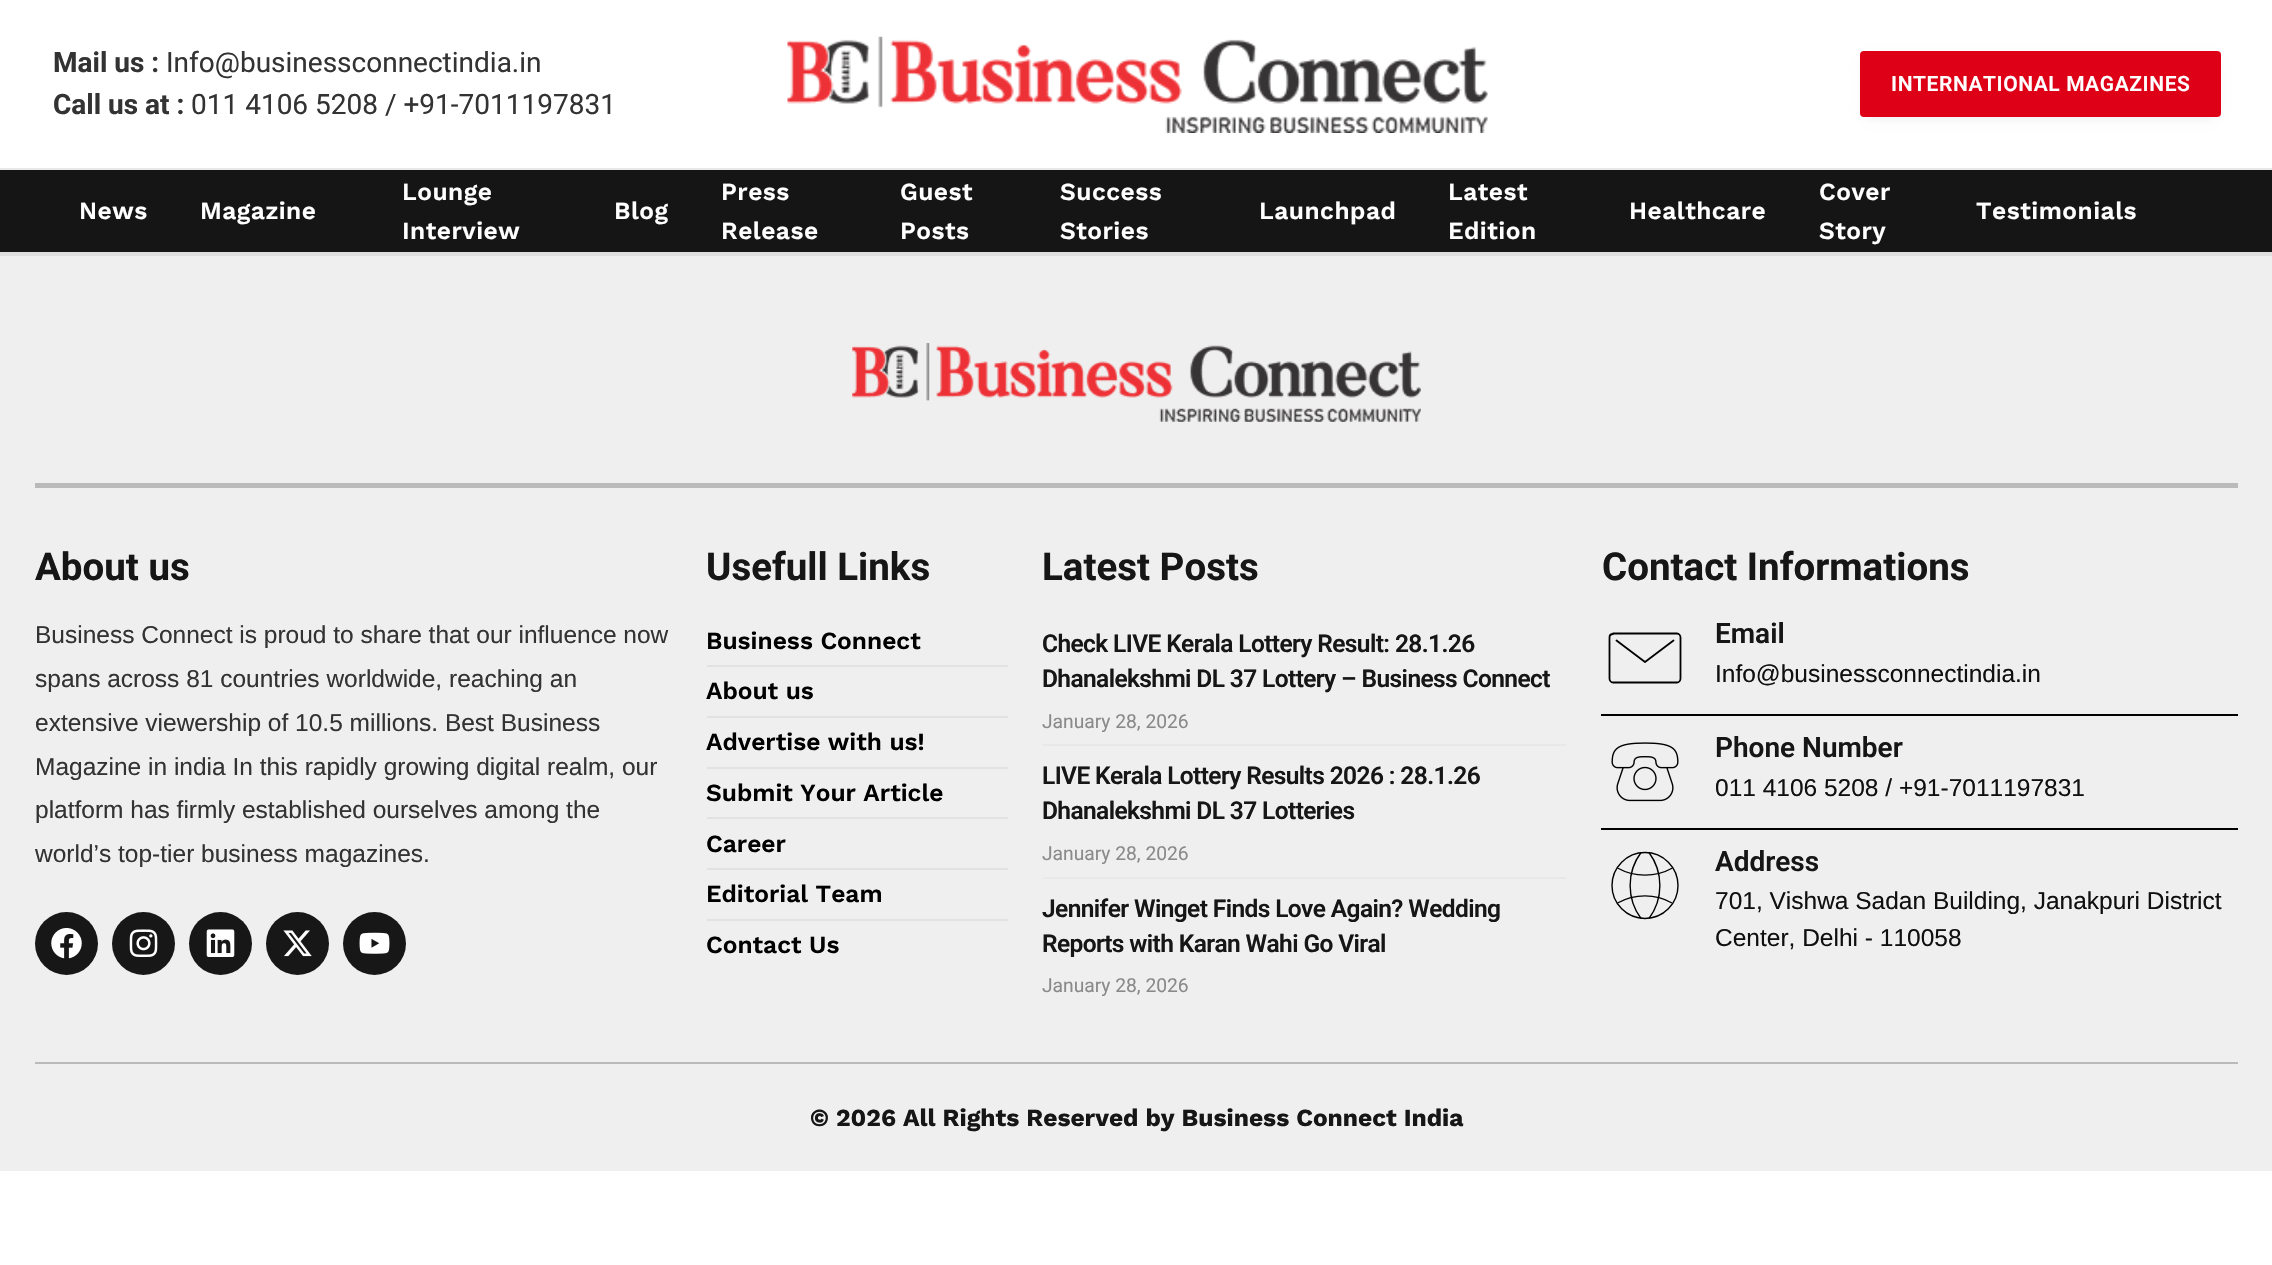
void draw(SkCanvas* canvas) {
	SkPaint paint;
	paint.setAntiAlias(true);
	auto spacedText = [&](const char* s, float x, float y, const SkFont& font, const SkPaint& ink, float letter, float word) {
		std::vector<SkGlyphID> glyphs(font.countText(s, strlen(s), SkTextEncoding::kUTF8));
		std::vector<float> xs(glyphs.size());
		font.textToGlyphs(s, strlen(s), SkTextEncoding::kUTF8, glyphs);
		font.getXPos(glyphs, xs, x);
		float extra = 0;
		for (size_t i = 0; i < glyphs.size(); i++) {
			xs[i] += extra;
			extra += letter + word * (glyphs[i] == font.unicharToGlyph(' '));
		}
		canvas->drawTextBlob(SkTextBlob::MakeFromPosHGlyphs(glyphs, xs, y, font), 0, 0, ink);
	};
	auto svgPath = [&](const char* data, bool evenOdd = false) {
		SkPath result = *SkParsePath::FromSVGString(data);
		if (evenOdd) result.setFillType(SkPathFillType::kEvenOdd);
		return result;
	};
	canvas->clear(0xffffffff);
	SkFont f1(fontMgr->matchFamilyStyle("Roboto", SkFontStyle::Bold()), 28);
	f1.setSubpixel(true);
	paint.setColor(0xff333333);
	canvas->drawString("Mail us :", 53, 72, f1, paint);
	SkFont f2(fontMgr->matchFamilyStyle("Roboto", SkFontStyle::Normal()), 28);
	f2.setSubpixel(true);
	canvas->drawString("Info@businessconnectindia.in", 166, 72, f2, paint);
	canvas->drawString("Call us at :", 53, 114, f1, paint);
	canvas->drawString("011 4106 5208 / +91-7011197831", 191, 114, f2, paint);
	canvas->drawImageRect(SkImages::DeferredFromEncodedData(SkData::MakeFromFileName("img1.png")), SkRect::MakeXYWH(787, 36, 701, 97), SkSamplingOptions());
	paint.setColor(0x29000000);
	paint.setMaskFilter(SkMaskFilter::MakeBlur(kNormal_SkBlurStyle, 6));
	canvas->drawRect(SkRect::MakeXYWH(1867, 61, 347, 53), paint);
	paint.setMaskFilter(nullptr);
	paint.setColor(0xffdd0017);
	canvas->drawRoundRect(SkRect::MakeXYWH(1860, 51, 361, 66), 4, 4, paint);
	SkFont f3(fontMgr->matchFamilyStyle("Roboto", SkFontStyle(600, SkFontStyle::kNormal_Width, SkFontStyle::kUpright_Slant)), 21);
	f3.setSubpixel(true);
	paint.setColor(0xffffffff);
	spacedText("INTERNATIONAL MAGAZINES", 1891, 91, f3, paint, 0.6, 0);
	paint.setColor(0xff151515);
	canvas->drawRect(SkRect::MakeXYWH(0, 170, 2272, 82), paint);
	paint.setColor(0xffe8e8e8);
	canvas->drawRect(SkRect::MakeXYWH(0, 168, 2272, 2), paint);
	paint.setColor(0xffdedede);
	canvas->drawRect(SkRect::MakeXYWH(0, 252, 2272, 4), paint);
	SkFont f4(fontMgr->matchFamilyStyle("Work Sans", SkFontStyle(600, SkFontStyle::kNormal_Width, SkFontStyle::kUpright_Slant)), 24.5);
	f4.setSubpixel(true);
	paint.setColor(0xffffffff);
	spacedText("News", 79, 219, f4, paint, 0.5, 0);
	spacedText("Magazine", 200, 219, f4, paint, 0.5, 0);
	spacedText("Lounge", 402, 200, f4, paint, 0.5, 0);
	spacedText("Interview", 402, 239, f4, paint, 0.5, 0);
	spacedText("Blog", 614, 219, f4, paint, 0.5, 0);
	spacedText("Press", 721, 200, f4, paint, 0.5, 0);
	spacedText("Release", 721, 239, f4, paint, 0.5, 0);
	spacedText("Guest", 900, 200, f4, paint, 0.5, 0);
	spacedText("Posts", 900, 239, f4, paint, 0.5, 0);
	spacedText("Success", 1060, 200, f4, paint, 0.5, 0);
	spacedText("Stories", 1060, 239, f4, paint, 0.5, 0);
	spacedText("Launchpad", 1259, 219, f4, paint, 0.5, 0);
	spacedText("Latest", 1448, 200, f4, paint, 0.5, 0);
	spacedText("Edition", 1448, 239, f4, paint, 0.5, 0);
	spacedText("Healthcare", 1629, 219, f4, paint, 0.5, 0);
	spacedText("Cover", 1819, 200, f4, paint, 0.5, 0);
	spacedText("Story", 1819, 239, f4, paint, 0.5, 0);
	spacedText("Testimonials", 1976, 219, f4, paint, 0.5, 0);
	paint.setColor(0xffefefef);
	canvas->drawRect(SkRect::MakeXYWH(0, 256, 2272, 915), paint);
	canvas->drawImageRect(SkImages::DeferredFromEncodedData(SkData::MakeFromFileName("img2.png")), SkRect::MakeXYWH(852, 343, 569, 79), SkSamplingOptions());
	paint.setColor(0xffbababa);
	canvas->drawRect(SkRect::MakeXYWH(35, 483, 2203, 5), paint);
	SkFont f5(fontMgr->matchFamilyStyle("Roboto", SkFontStyle::Bold()), 38.5);
	f5.setSubpixel(true);
	paint.setColor(0xff161616);
	canvas->drawString("About us", 35, 580, f5, paint);
	SkFont f6(fontMgr->matchFamilyStyle("Liberation Sans", SkFontStyle::Normal()), 24.5);
	f6.setSubpixel(true);
	paint.setColor(0xff333333);
	canvas->drawString("Business Connect is proud to share that our influence now", 35, 643, f6, paint);
	canvas->drawString("spans across 81 countries worldwide, reaching an", 35, 687, f6, paint);
	canvas->drawString("extensive viewership of 10.5 millions. Best Business", 35, 731, f6, paint);
	canvas->drawString("Magazine in india In this rapidly growing digital realm, our", 35, 775, f6, paint);
	canvas->drawString("platform has firmly established ourselves among the", 35, 818, f6, paint);
	canvas->drawString("world’s top-tier business magazines.", 35, 862, f6, paint);
	paint.setColor(0xff171717);
	canvas->drawCircle(66.5, 943.5, 31.5, paint);
	canvas->drawImageRect(SkImages::DeferredFromEncodedData(SkData::MakeFromFileName("img3.png")), SkRect::MakeXYWH(51, 928, 31, 31), SkSamplingOptions());
	canvas->drawCircle(143.5, 943.5, 31.5, paint);
	canvas->drawImageRect(SkImages::DeferredFromEncodedData(SkData::MakeFromFileName("img4.png")), SkRect::MakeXYWH(129, 929, 29, 28), SkSamplingOptions());
	canvas->drawCircle(220.5, 943.5, 31.5, paint);
	canvas->drawImageRect(SkImages::DeferredFromEncodedData(SkData::MakeFromFileName("img5.png")), SkRect::MakeXYWH(206, 929, 29, 28), SkSamplingOptions());
	canvas->drawCircle(297.5, 943.5, 31.5, paint);
	canvas->drawImageRect(SkImages::DeferredFromEncodedData(SkData::MakeFromFileName("img6.png")), SkRect::MakeXYWH(283, 930, 29, 27), SkSamplingOptions());
	canvas->drawCircle(374.5, 943.5, 31.5, paint);
	canvas->drawImageRect(SkImages::DeferredFromEncodedData(SkData::MakeFromFileName("img7.png")), SkRect::MakeXYWH(359, 932, 31, 22), SkSamplingOptions());
	paint.setColor(0xff161616);
	canvas->drawString("Usefull Links", 706, 580, f5, paint);
	paint.setColor(0xff000000);
	canvas->drawString("Business Connect", 706, 649, f4, paint);
	paint.setColor(0xffe2e2e2);
	canvas->drawRect(SkRect::MakeXYWH(707, 665, 301, 2), paint);
	paint.setColor(0xff000000);
	canvas->drawString("About us", 706, 699, f4, paint);
	paint.setColor(0xffe2e2e2);
	canvas->drawRect(SkRect::MakeXYWH(707, 716, 301, 2), paint);
	paint.setColor(0xff000000);
	canvas->drawString("Advertise with us!", 706, 750, f4, paint);
	paint.setColor(0xffe2e2e2);
	canvas->drawRect(SkRect::MakeXYWH(707, 767, 301, 2), paint);
	paint.setColor(0xff000000);
	canvas->drawString("Submit Your Article", 706, 801, f4, paint);
	paint.setColor(0xffe2e2e2);
	canvas->drawRect(SkRect::MakeXYWH(707, 817, 301, 2), paint);
	paint.setColor(0xff000000);
	canvas->drawString("Career", 706, 852, f4, paint);
	paint.setColor(0xffe2e2e2);
	canvas->drawRect(SkRect::MakeXYWH(707, 868, 301, 2), paint);
	paint.setColor(0xff000000);
	canvas->drawString("Editorial Team", 706, 902, f4, paint);
	paint.setColor(0xffe2e2e2);
	canvas->drawRect(SkRect::MakeXYWH(707, 919, 301, 2), paint);
	paint.setColor(0xff000000);
	canvas->drawString("Contact Us", 706, 953, f4, paint);
	paint.setColor(0xff161616);
	canvas->drawString("Latest Posts", 1042, 580, f5, paint);
	SkFont f7(fontMgr->matchFamilyStyle("Roboto", SkFontStyle(600, SkFontStyle::kNormal_Width, SkFontStyle::kUpright_Slant)), 24.5);
	f7.setSubpixel(true);
	spacedText("Check LIVE Kerala Lottery Result: 28.1.26", 1042, 652, f7, paint, -0.6, 0);
	spacedText("Dhanalekshmi DL 37 Lottery – Business Connect", 1042, 687, f7, paint, -0.6, 0);
	SkFont f8(fontMgr->matchFamilyStyle("Roboto", SkFontStyle::Normal()), 19.25);
	f8.setSubpixel(true);
	paint.setColor(0xff8a8a8a);
	canvas->drawString("January 28, 2026", 1042, 728, f8, paint);
	paint.setColor(0xffe8e8e8);
	canvas->drawRect(SkRect::MakeXYWH(1043, 744, 523, 2), paint);
	paint.setColor(0xff161616);
	spacedText("LIVE Kerala Lottery Results 2026 : 28.1.26", 1042, 784, f7, paint, -0.6, 0);
	spacedText("Dhanalekshmi DL 37 Lotteries", 1042, 819, f7, paint, -0.6, 0);
	paint.setColor(0xff8a8a8a);
	canvas->drawString("January 28, 2026", 1042, 860, f8, paint);
	paint.setColor(0xffe8e8e8);
	canvas->drawRect(SkRect::MakeXYWH(1043, 877, 523, 2), paint);
	paint.setColor(0xff161616);
	spacedText("Jennifer Winget Finds Love Again? Wedding", 1042, 917, f7, paint, -0.6, 0);
	spacedText("Reports with Karan Wahi Go Viral", 1042, 952, f7, paint, -0.6, 0);
	paint.setColor(0xff8a8a8a);
	canvas->drawString("January 28, 2026", 1042, 992, f8, paint);
	paint.setColor(0xff161616);
	canvas->drawString("Contact Informations", 1602, 580, f5, paint);
	paint.setStroke(true);
	paint.setStrokeWidth(1.8);
	paint.setStrokeCap(SkPaint::kRound_Cap);
	paint.setStrokeJoin(SkPaint::kRound_Join);
	paint.setColor(0xff000000);
	canvas->drawPath(svgPath("M1613 634C1611 634 1609.5 635.5 1609.5 637.5V678.5C1609.5 680.5 1611 682.5 1613 682.5H1677C1679 682.5 1680.5 680.5 1680.5 678.5V637.5C1680.5 635.5 1679 633.5 1677 633.5H1613ZM1673.5 640.5L1645 662L1616.5 640.5"), paint);
	SkFont f9(fontMgr->matchFamilyStyle("Roboto", SkFontStyle(600, SkFontStyle::kNormal_Width, SkFontStyle::kUpright_Slant)), 28);
	f9.setSubpixel(true);
	paint.setStroke(false);
	paint.setColor(0xff161616);
	canvas->drawString("Email", 1715, 643, f9, paint);
	paint.setColor(0xff101010);
	canvas->drawString("Info@businessconnectindia.in", 1715, 682, f6, paint);
	paint.setColor(0xff000000);
	canvas->drawRect(SkRect::MakeXYWH(1601, 714, 637, 2), paint);
	canvas->drawImageRect(SkImages::DeferredFromEncodedData(SkData::MakeFromFileName("img8.png")), SkRect::MakeXYWH(1611, 742, 68, 60), SkSamplingOptions());
	paint.setColor(0xff161616);
	canvas->drawString("Phone Number", 1715, 757, f9, paint);
	paint.setColor(0xff101010);
	canvas->drawString("011 4106 5208 / +91-7011197831", 1715, 796, f6, paint);
	paint.setColor(0xff000000);
	canvas->drawRect(SkRect::MakeXYWH(1601, 828, 637, 2), paint);
	paint.setStroke(true);
	paint.setStrokeWidth(1.4);
	paint.setStrokeCap(SkPaint::kButt_Cap);
	paint.setStrokeJoin(SkPaint::kMiter_Join);
	canvas->drawPath(svgPath("M1672.5 868C1655.5 877.5 1634.5 877.5 1617.5 868M1617.5 903C1634.5 893.5 1655.5 893.5 1672 903"), paint);
	canvas->drawPath(svgPath("M1641 918.5C1626.5 899 1626.5 872 1641 852.5"), paint);
	canvas->drawPath(svgPath("M1649 852.5C1663.5 872 1663.5 899 1649 918.5"), paint);
	canvas->drawCircle(1645, 885.5, 33, paint);
	paint.setStroke(false);
	paint.setColor(0xff161616);
	canvas->drawString("Address", 1715, 871, f9, paint);
	paint.setColor(0xff101010);
	canvas->drawString("701, Vishwa Sadan Building, Janakpuri District", 1715, 909, f6, paint);
	canvas->drawString("Center, Delhi - 110058", 1715, 946, f6, paint);
	paint.setColor(0xffbababa);
	canvas->drawRect(SkRect::MakeXYWH(35, 1062, 2203, 2), paint);
	SkFont f10(fontMgr->matchFamilyStyle("Work Sans", SkFontStyle::Bold()), 24.5);
	f10.setSubpixel(true);
	paint.setColor(0xff161616);
	canvas->drawString("© 2026 All Rights Reserved by Business Connect India", 810, 1126, f10, paint);
}
